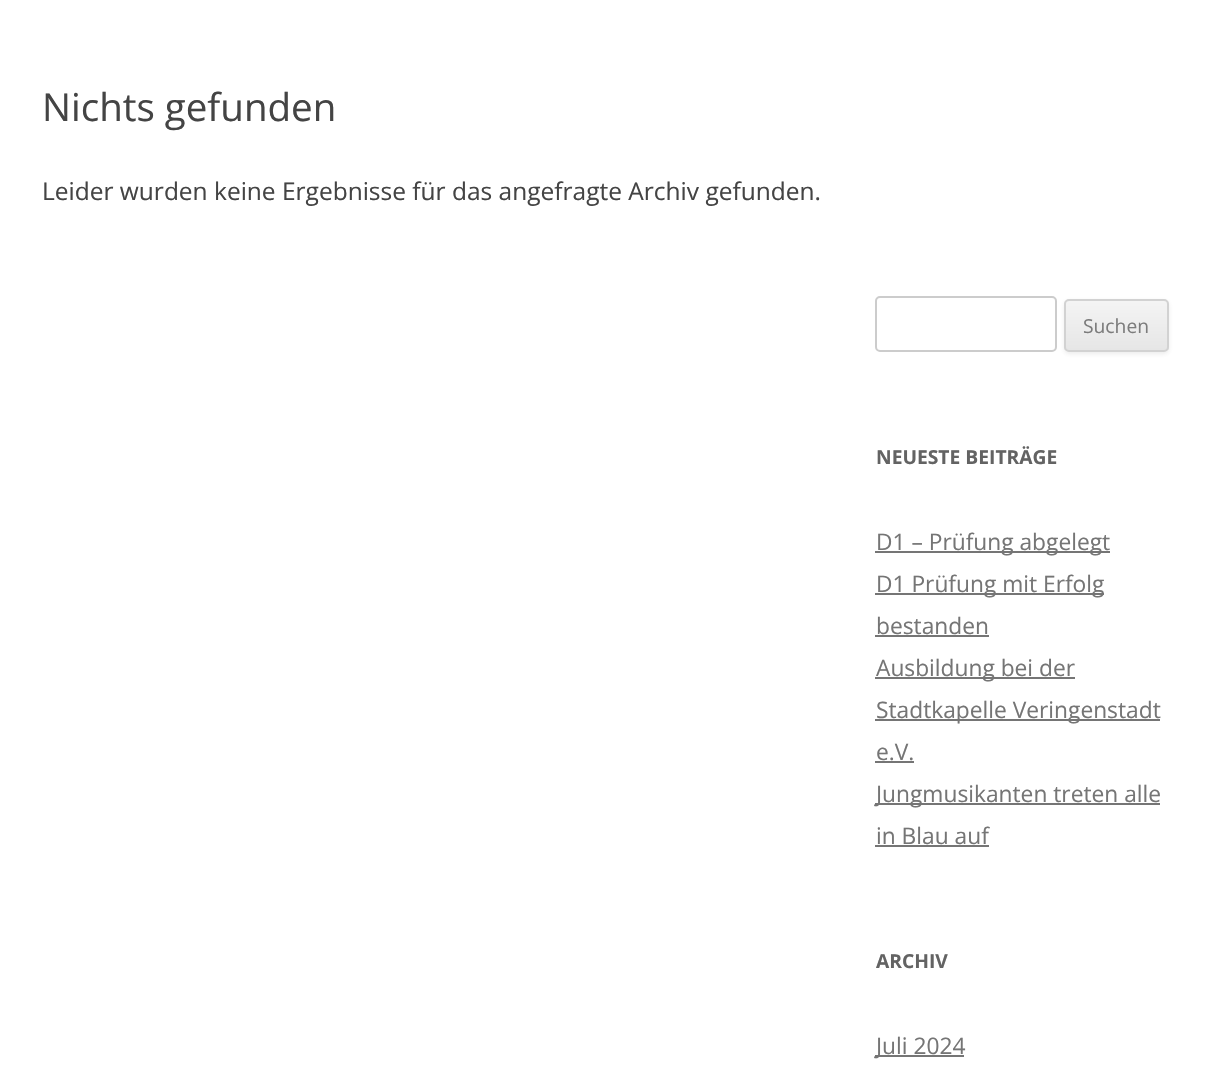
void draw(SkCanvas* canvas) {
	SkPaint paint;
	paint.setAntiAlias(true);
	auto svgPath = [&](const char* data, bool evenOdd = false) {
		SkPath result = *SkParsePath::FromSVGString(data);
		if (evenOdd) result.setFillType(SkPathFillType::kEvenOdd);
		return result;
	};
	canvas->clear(0xffffffff);
	SkFont f1(fontMgr->matchFamilyStyle("Open Sans", SkFontStyle::Normal()), 38.5);
	f1.setSubpixel(true);
	paint.setColor(0xff444444);
	canvas->drawString("Nichts gefunden", 42, 121, f1, paint);
	SkFont f2(fontMgr->matchFamilyStyle("Open Sans", SkFontStyle::Normal()), 24.5);
	f2.setSubpixel(true);
	canvas->drawString("Leider wurden keine Ergebnisse für das angefragte Archiv gefunden.", 42, 200, f2, paint);
	paint.setStroke(true);
	paint.setStrokeWidth(2);
	paint.setColor(0xffcccccc);
	canvas->drawRoundRect(SkRect::MakeXYWH(876, 297, 180, 54), 4, 4, paint);
	paint.setStroke(false);
	paint.setColor(0x1a404040);
	paint.setMaskFilter(SkMaskFilter::MakeBlur(kNormal_SkBlurStyle, 2));
	canvas->drawRoundRect(SkRect::MakeXYWH(1064, 301, 105, 53), 5, 5, paint);
	paint.setMaskFilter(nullptr);
	canvas->save();
	canvas->clipPath(svgPath("M1069 299H1164C1167 299 1169 301 1169 304V347C1169 350 1167 352 1164 352H1069C1066 352 1064 350 1064 347V304C1064 301 1066 299 1069 299Z"), true);
	{
		const SkColor colors[] = {0xfff4f4f4, 0xffe6e6e6};
		const float stops[] = {0, 1};
		const SkPoint ends[] = {{1117, 301}, {1117, 350}};
		paint.setShader(SkGradientShader::MakeLinear(ends, colors, stops, 2, SkTileMode::kClamp));
		paint.setAlpha(255);
	}
	canvas->drawRect(SkRect::MakeXYWH(1064, 301, 105, 49), paint);
	canvas->restore();
	paint.setStroke(true);
	paint.setShader(nullptr);
	paint.setColor(0xffd2d2d2);
	canvas->drawRoundRect(SkRect::MakeXYWH(1065, 300, 103, 51), 4, 4, paint);
	SkFont f3(fontMgr->matchFamilyStyle("Open Sans", SkFontStyle::Normal()), 19.25);
	f3.setSubpixel(true);
	paint.setStroke(false);
	paint.setColor(0xff7c7c7c);
	canvas->drawString("Suchen", 1083, 333, f3, paint);
	SkFont f4(fontMgr->matchFamilyStyle("Open Sans", SkFontStyle::Bold()), 19.25);
	f4.setSubpixel(true);
	paint.setColor(0xff636363);
	canvas->drawString("NEUESTE BEITRÄGE", 876, 464, f4, paint);
	paint.setColor(0xff757575);
	canvas->drawRect(SkRect::MakeXYWH(875, 551, 235, 2), paint);
	SkFont f5(fontMgr->matchFamilyStyle("Open Sans", SkFontStyle::Normal()), 22.75);
	f5.setSubpixel(true);
	canvas->drawString("D1 – Prüfung abgelegt", 876, 550, f5, paint);
	canvas->drawRect(SkRect::MakeXYWH(875, 593, 229, 2), paint);
	canvas->drawString("D1 Prüfung mit Erfolg", 876, 592, f5, paint);
	canvas->drawString("bestanden", 876, 634, f5, paint);
	canvas->drawRect(SkRect::MakeXYWH(875, 635, 114, 2), paint);
	canvas->drawRect(SkRect::MakeXYWH(875, 677, 200, 2), paint);
	canvas->drawString("Ausbildung bei der", 876, 676, f5, paint);
	canvas->drawRect(SkRect::MakeXYWH(875, 719, 285, 2), paint);
	canvas->drawString("Stadtkapelle Veringenstadt", 876, 718, f5, paint);
	canvas->drawString("e.V.", 876, 760, f5, paint);
	canvas->drawRect(SkRect::MakeXYWH(875, 761, 39, 2), paint);
	canvas->drawRect(SkRect::MakeXYWH(875, 803, 285, 2), paint);
	canvas->drawString("Jungmusikanten treten alle", 876, 802, f5, paint);
	canvas->drawString("in Blau auf", 876, 844, f5, paint);
	canvas->drawRect(SkRect::MakeXYWH(875, 845, 114, 2), paint);
	paint.setColor(0xff636363);
	canvas->drawString("ARCHIV", 876, 968, f4, paint);
	paint.setColor(0xff757575);
	canvas->drawRect(SkRect::MakeXYWH(875, 1055, 89, 2), paint);
	canvas->drawString("Juli 2024", 876, 1054, f5, paint);
}
